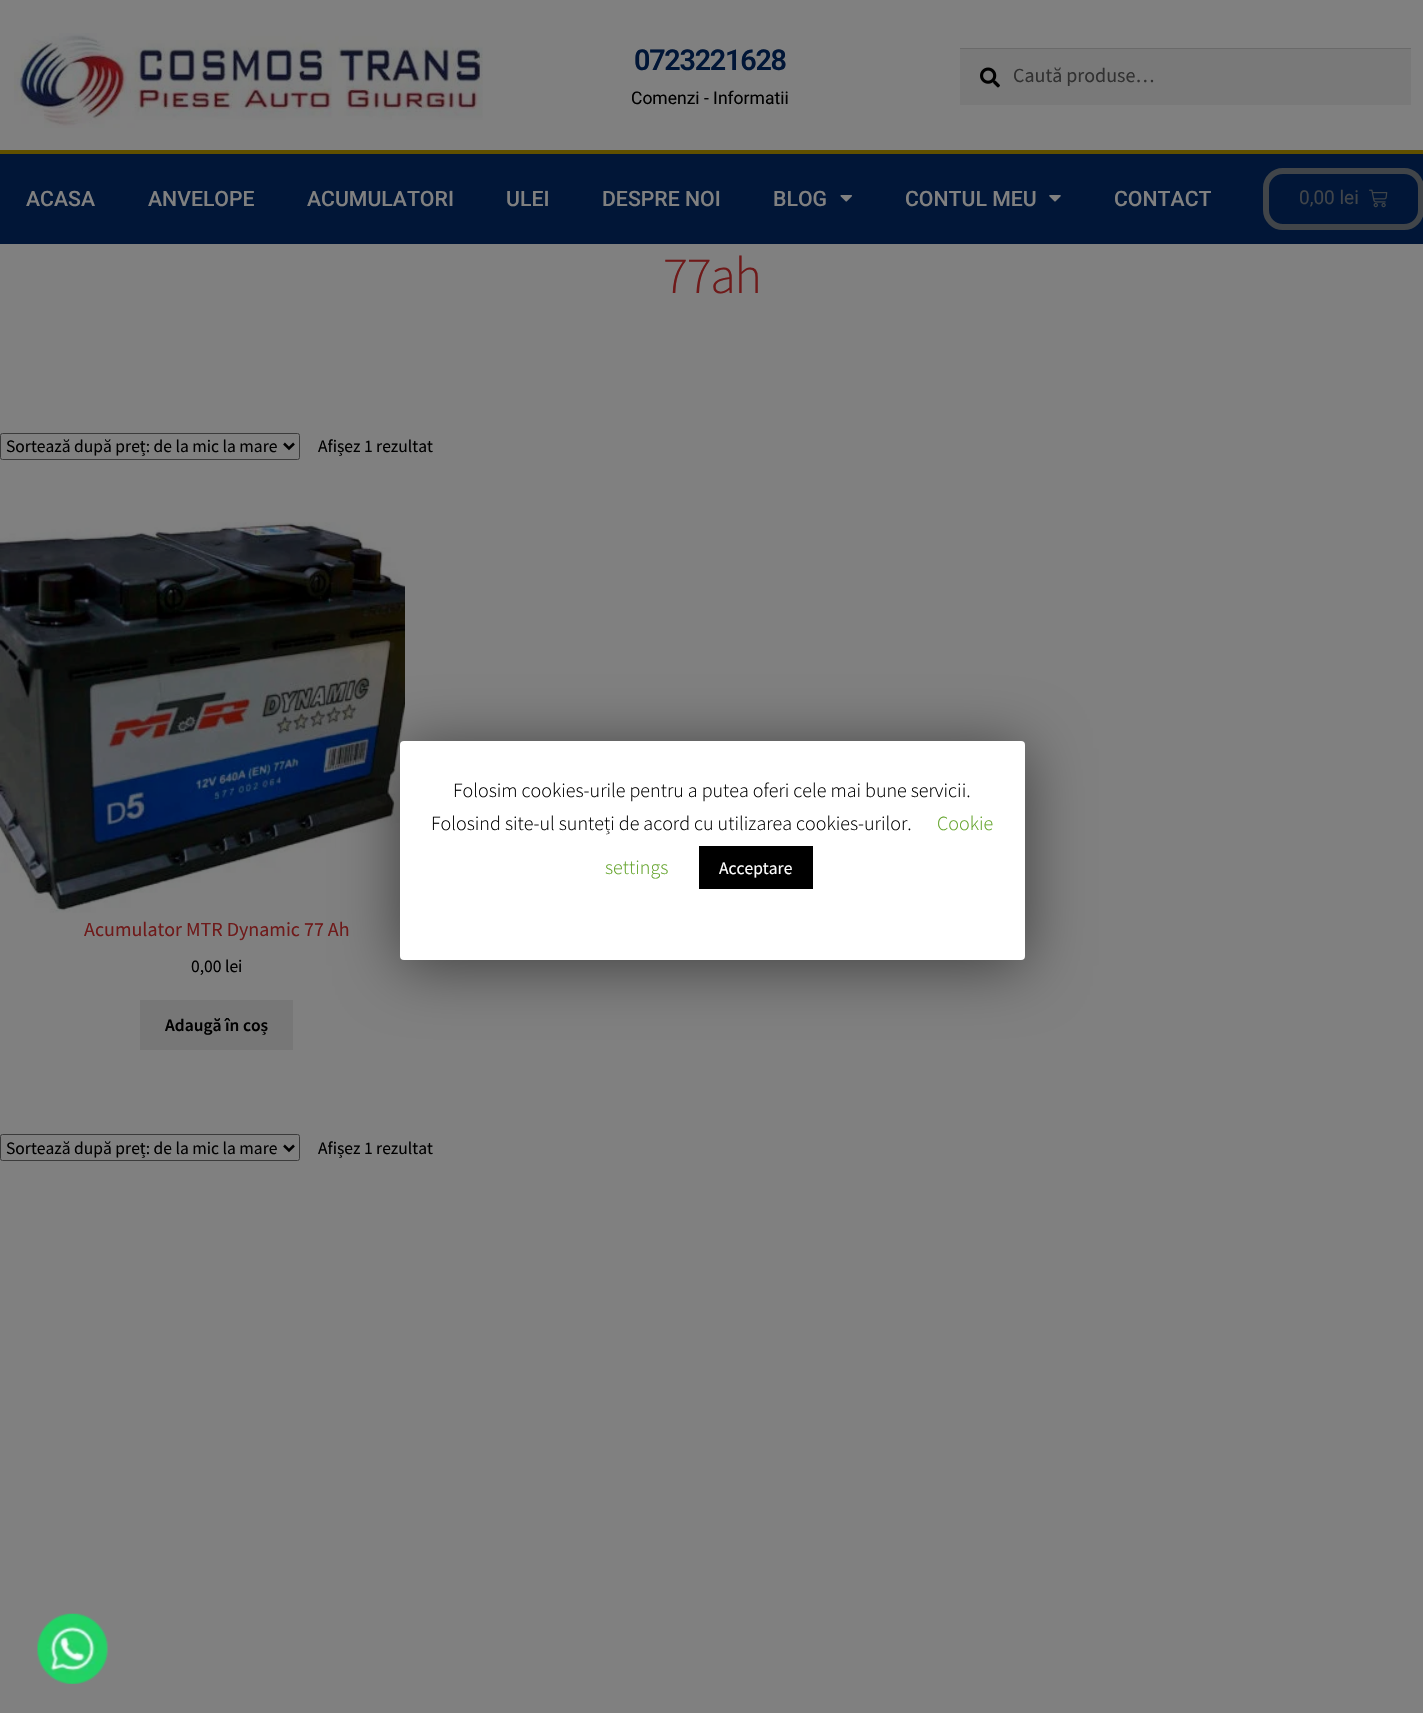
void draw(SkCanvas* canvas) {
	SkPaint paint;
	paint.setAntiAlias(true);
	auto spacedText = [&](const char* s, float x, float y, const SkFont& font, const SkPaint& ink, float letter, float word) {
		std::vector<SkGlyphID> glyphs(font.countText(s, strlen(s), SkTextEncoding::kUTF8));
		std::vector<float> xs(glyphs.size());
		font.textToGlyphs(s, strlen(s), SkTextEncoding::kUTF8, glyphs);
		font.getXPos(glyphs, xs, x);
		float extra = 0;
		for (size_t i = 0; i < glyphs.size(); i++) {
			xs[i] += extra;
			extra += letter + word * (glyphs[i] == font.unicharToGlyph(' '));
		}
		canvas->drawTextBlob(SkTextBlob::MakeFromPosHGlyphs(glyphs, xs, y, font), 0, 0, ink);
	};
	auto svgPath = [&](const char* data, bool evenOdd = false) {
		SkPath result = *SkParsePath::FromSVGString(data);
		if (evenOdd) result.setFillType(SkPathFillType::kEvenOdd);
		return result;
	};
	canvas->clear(0xff808080);
	canvas->drawImageRect(SkImages::DeferredFromEncodedData(SkData::MakeFromFileName("img1.png")), SkRect::MakeXYWH(13, 33, 470, 95), SkSamplingOptions());
	SkFont f1(fontMgr->matchFamilyStyle("Roboto", SkFontStyle(600, SkFontStyle::kNormal_Width, SkFontStyle::kUpright_Slant)), 28.75);
	f1.setSubpixel(true);
	paint.setColor(0xff011637);
	spacedText("0723221628", 634, 70, f1, paint, -1.25, 0);
	SkFont f2(fontMgr->matchFamilyStyle("Roboto", SkFontStyle::Normal()), 17.5);
	f2.setSubpixel(true);
	paint.setColor(0xff000000);
	canvas->drawString("Comenzi - Informatii", 631, 104, f2, paint);
	paint.setColor(0xff797979);
	canvas->drawRect(SkRect::MakeXYWH(960, 49, 451, 56), paint);
	canvas->drawImageRect(SkImages::DeferredFromEncodedData(SkData::MakeFromFileName("img2.png")), SkRect::MakeXYWH(980, 67, 20, 21), SkSamplingOptions());
	paint.setColor(0xff6a6a6a);
	canvas->drawRect(SkRect::MakeXYWH(960, 48, 451, 1), paint);
	SkFont f3(fontMgr->matchFamilyStyle("Source Sans Pro", SkFontStyle::Normal()), 20);
	f3.setSubpixel(true);
	paint.setColor(0xff313131);
	canvas->drawString("Caută produse…", 1013, 82, f3, paint);
	paint.setColor(0xff011637);
	canvas->drawRect(SkRect::MakeXYWH(0, 154, 1423, 90), paint);
	paint.setColor(0xff605000);
	canvas->drawRect(SkRect::MakeXYWH(0, 150, 1423, 4), paint);
	SkFont f4(fontMgr->matchFamilyStyle("Roboto", SkFontStyle(500, SkFontStyle::kNormal_Width, SkFontStyle::kUpright_Slant)), 21.25);
	f4.setSubpixel(true);
	paint.setColor(0xff808080);
	canvas->drawString("ACASA", 26, 206, f4, paint);
	canvas->drawString("ANVELOPE", 148, 206, f4, paint);
	canvas->drawString("ACUMULATORI", 307, 206, f4, paint);
	canvas->drawString("ULEI", 506, 206, f4, paint);
	canvas->drawString("DESPRE NOI", 602, 206, f4, paint);
	canvas->drawString("BLOG", 773, 206, f4, paint);
	canvas->drawImageRect(SkImages::DeferredFromEncodedData(SkData::MakeFromFileName("img3.png")), SkRect::MakeXYWH(840, 195, 12, 7), SkSamplingOptions());
	canvas->drawString("CONTUL MEU", 905, 206, f4, paint);
	canvas->drawImageRect(SkImages::DeferredFromEncodedData(SkData::MakeFromFileName("img4.png")), SkRect::MakeXYWH(1049, 195, 12, 7), SkSamplingOptions());
	canvas->drawString("CONTACT", 1114, 206, f4, paint);
	paint.setStroke(true);
	paint.setStrokeWidth(6);
	paint.setColor(0xff414549);
	canvas->drawRoundRect(SkRect::MakeXYWH(1266, 171, 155, 56), 17, 17, paint);
	SkFont f5(fontMgr->matchFamilyStyle("Roboto", SkFontStyle::Normal()), 19);
	f5.setSubpixel(true);
	paint.setStroke(false);
	canvas->drawString("0,00 lei", 1299, 204, f5, paint);
	canvas->drawImageRect(SkImages::DeferredFromEncodedData(SkData::MakeFromFileName("img5.png")), SkRect::MakeXYWH(1369, 189, 19, 19), SkSamplingOptions());
	SkFont f6(fontMgr->matchFamilyStyle("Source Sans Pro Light", SkFontStyle(300, SkFontStyle::kNormal_Width, SkFontStyle::kUpright_Slant)), 52);
	f6.setSubpixel(true);
	paint.setColor(0xff6f1a1a);
	spacedText("77ah", 663, 293, f6, paint, -1.25, 0);
	paint.setStroke(true);
	paint.setStrokeWidth(1);
	paint.setColor(0xff3b3b3b);
	canvas->drawRoundRect(SkRect::MakeXYWH(0.5, 433.5, 299, 26), 2, 2, paint);
	paint.setStrokeWidth(2.5);
	paint.setColor(0xff000000);
	canvas->drawPath(svgPath("M284 443.5L289 448.5L294 443.5"), paint);
	SkFont f7(fontMgr->matchFamilyStyle("Source Sans Pro", SkFontStyle::Normal()), 17.5);
	f7.setSubpixel(true);
	paint.setStroke(false);
	canvas->drawString("Sortează după preț: de la mic la mare", 6, 452, f7, paint);
	canvas->drawString("Afișez 1 rezultat", 318, 452, f7, paint);
	canvas->drawImageRect(SkImages::DeferredFromEncodedData(SkData::MakeFromFileName("img6.png")), SkRect::MakeXYWH(0, 522, 405, 391), SkSamplingOptions());
	paint.setColor(0xff6f1a1a);
	canvas->drawString("Acumulator MTR Dynamic 77 Ah", 84, 936, f3, paint);
	paint.setColor(0xff000000);
	canvas->drawString("0,00 lei", 191, 972, f7, paint);
	paint.setColor(0xff777777);
	canvas->drawRect(SkRect::MakeXYWH(140, 1000, 153, 50), paint);
	SkFont f8(fontMgr->matchFamilyStyle("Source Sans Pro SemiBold", SkFontStyle(600, SkFontStyle::kNormal_Width, SkFontStyle::kUpright_Slant)), 17.5);
	f8.setSubpixel(true);
	paint.setColor(0xff000000);
	canvas->drawString("Adaugă în coș", 165, 1031, f8, paint);
	paint.setStroke(true);
	paint.setStrokeWidth(1);
	paint.setColor(0xff3b3b3b);
	canvas->drawRoundRect(SkRect::MakeXYWH(0.5, 1134.5, 299, 26), 2, 2, paint);
	paint.setStrokeWidth(2.5);
	paint.setColor(0xff000000);
	canvas->drawPath(svgPath("M284 1145.5L289 1150.5L294 1145.5"), paint);
	paint.setStroke(false);
	canvas->drawString("Sortează după preț: de la mic la mare", 6, 1154, f7, paint);
	canvas->drawString("Afișez 1 rezultat", 318, 1154, f7, paint);
	paint.setColor(0x80000000);
	paint.setMaskFilter(SkMaskFilter::MakeBlur(kNormal_SkBlurStyle, 31));
	canvas->drawRoundRect(SkRect::MakeXYWH(400, 748, 625, 218), 4, 4, paint);
	paint.setMaskFilter(nullptr);
	paint.setColor(0xffffffff);
	canvas->drawRoundRect(SkRect::MakeXYWH(400, 741, 625, 219), 4, 4, paint);
	SkFont f9(fontMgr->matchFamilyStyle("Source Sans Pro Light", SkFontStyle(300, SkFontStyle::kNormal_Width, SkFontStyle::kUpright_Slant)), 20);
	f9.setSubpixel(true);
	paint.setColor(0xff000000);
	canvas->drawString("Folosim cookies-urile pentru a putea oferi cele mai bune servicii.", 453, 797, f9, paint);
	canvas->drawString("Folosind site-ul sunteți de acord cu utilizarea cookies-urilor.", 431, 830, f9, paint);
	paint.setColor(0xff62a329);
	canvas->drawString("Cookie", 937, 830, f9, paint);
	canvas->drawString("settings", 605, 874, f9, paint);
	paint.setColor(0xff000000);
	canvas->drawRect(SkRect::MakeXYWH(699, 846, 114, 43), paint);
	paint.setColor(0xffffffff);
	canvas->drawString("Acceptare", 719, 874, f7, paint);
	canvas->drawImageRect(SkImages::DeferredFromEncodedData(SkData::MakeFromFileName("img7.png")), SkRect::MakeXYWH(37, 1613, 72, 71), SkSamplingOptions());
}
